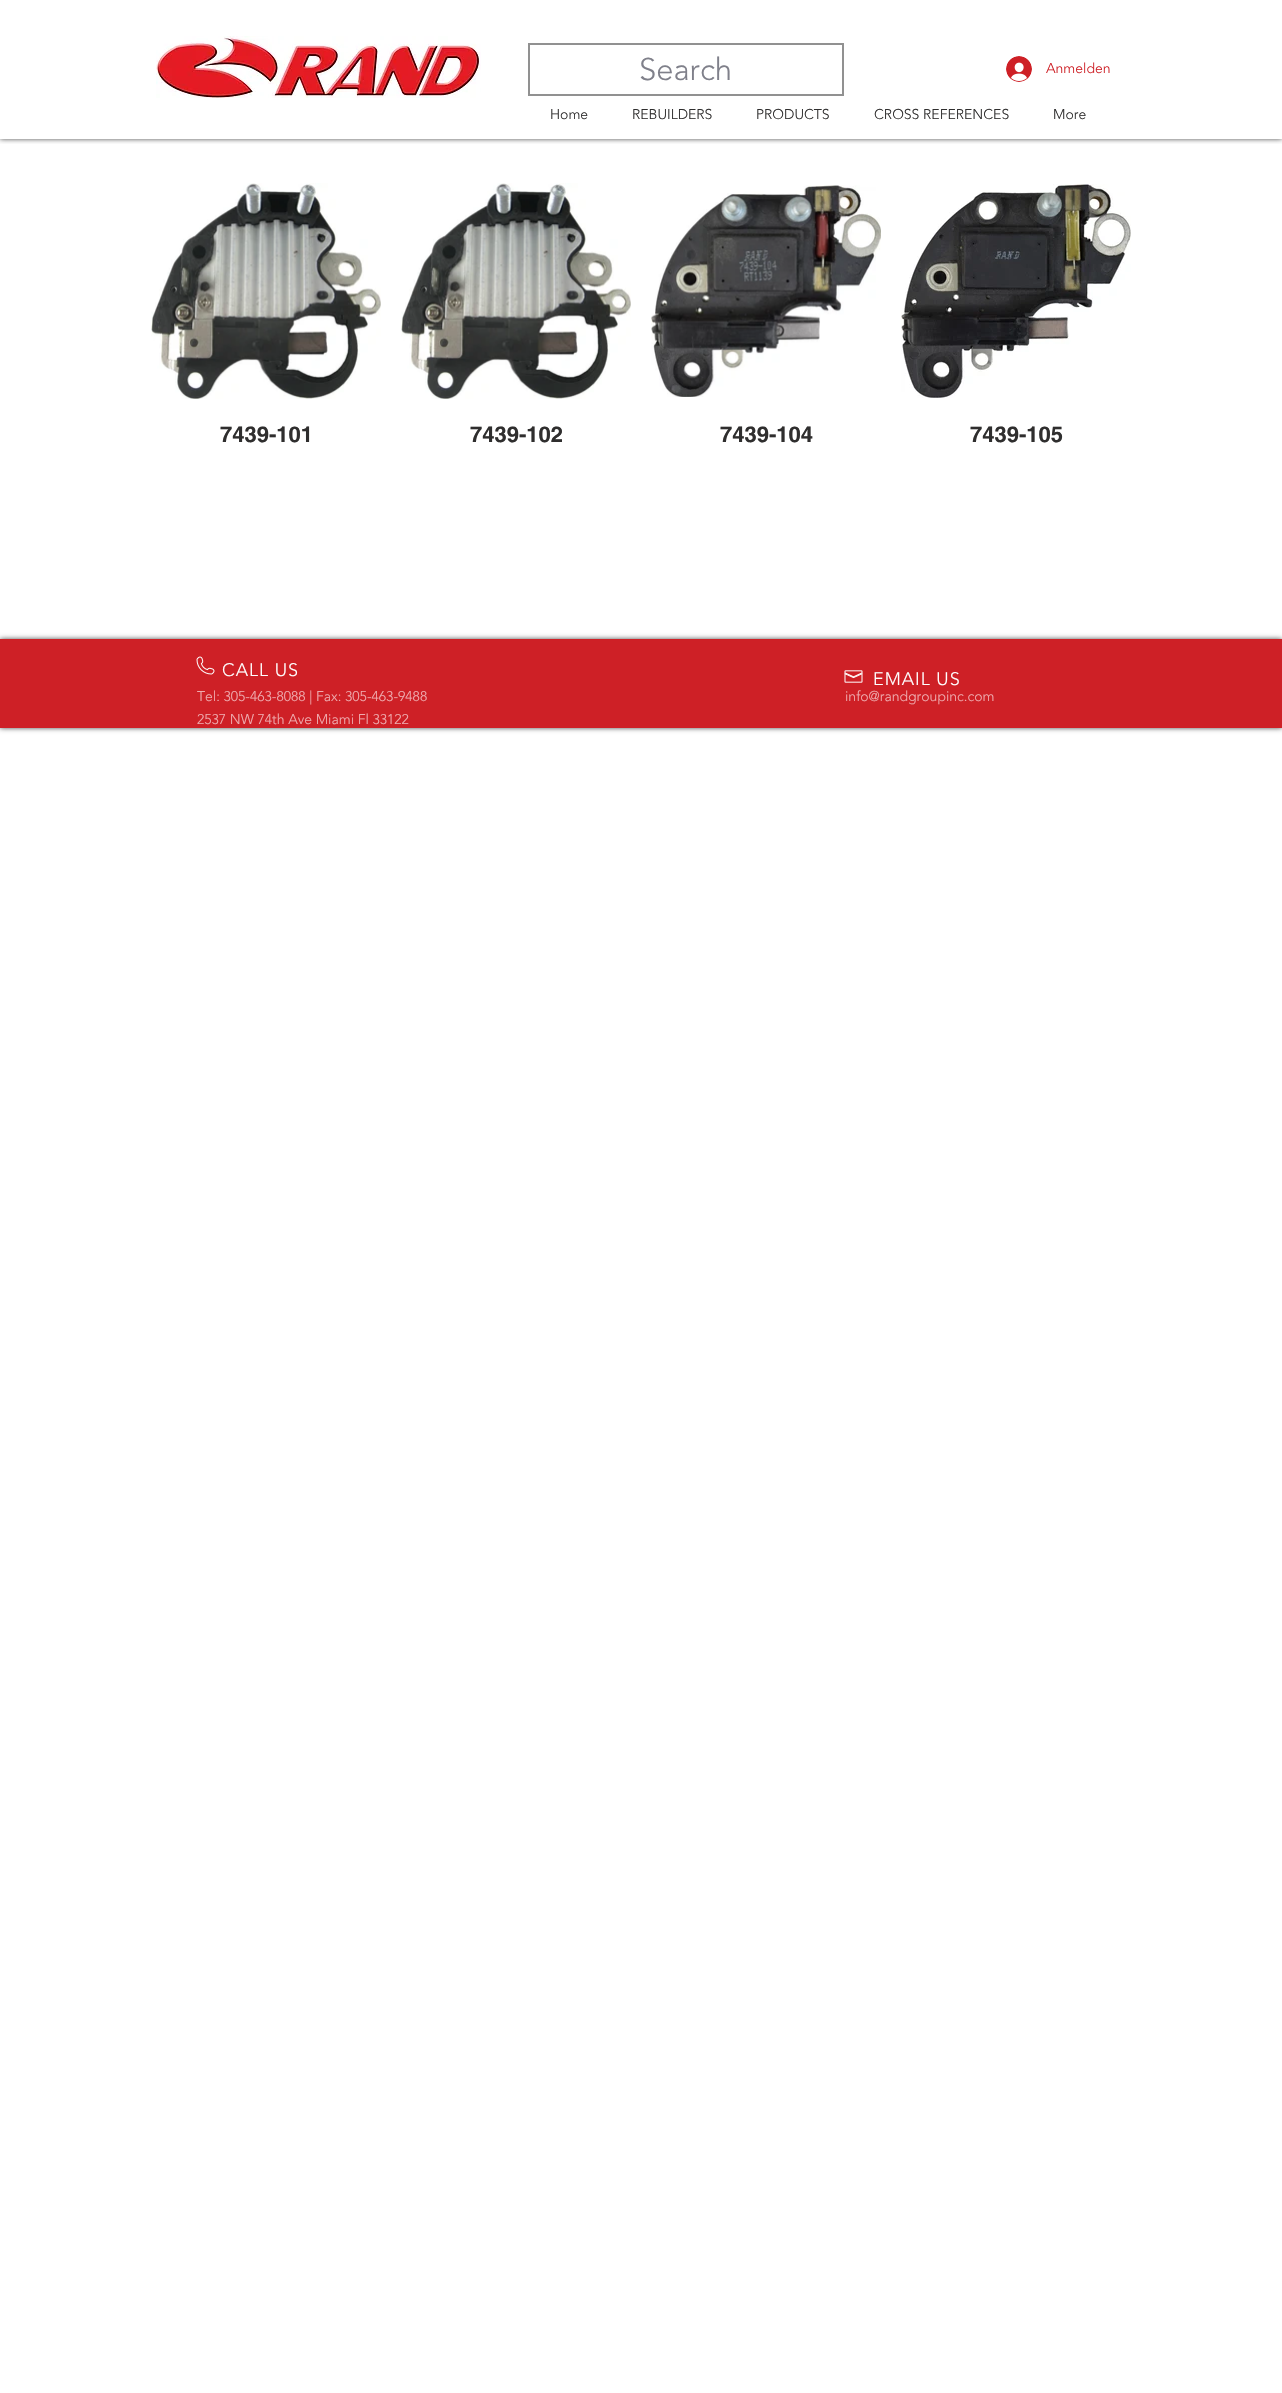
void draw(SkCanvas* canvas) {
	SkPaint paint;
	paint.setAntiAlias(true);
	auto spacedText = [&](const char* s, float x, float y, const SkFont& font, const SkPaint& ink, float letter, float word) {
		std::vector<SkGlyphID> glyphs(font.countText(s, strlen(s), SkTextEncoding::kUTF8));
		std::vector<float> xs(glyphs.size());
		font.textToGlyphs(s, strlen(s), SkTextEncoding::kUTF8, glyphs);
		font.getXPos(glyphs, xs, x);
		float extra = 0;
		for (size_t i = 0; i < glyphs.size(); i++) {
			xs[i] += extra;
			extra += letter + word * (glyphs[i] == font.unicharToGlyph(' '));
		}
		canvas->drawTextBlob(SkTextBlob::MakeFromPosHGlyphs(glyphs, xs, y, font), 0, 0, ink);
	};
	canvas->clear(0xffffffff);
	canvas->save();
	canvas->clipRect(SkRect::MakeXYWH(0, 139, 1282, 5));
	paint.setColor(0xb3000000);
	paint.setMaskFilter(SkMaskFilter::MakeBlur(kNormal_SkBlurStyle, 2.5));
	canvas->drawRect(SkRect::MakeXYWH(0, 0, 1282, 139), paint);
	paint.setMaskFilter(nullptr);
	canvas->restore();
	canvas->drawImageRect(SkImages::DeferredFromEncodedData(SkData::MakeFromFileName("img1.png")), SkRect::MakeXYWH(156, 36, 325, 62), SkSamplingOptions());
	paint.setStroke(true);
	paint.setStrokeWidth(2);
	paint.setColor(0xff919191);
	canvas->drawRect(SkRect::MakeXYWH(529, 44, 314, 51), paint);
	SkFont f1(fontMgr->matchFamilyStyle("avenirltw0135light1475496", SkFontStyle(300, SkFontStyle::kNormal_Width, SkFontStyle::kUpright_Slant)), 31);
	f1.setSubpixel(true);
	paint.setStroke(false);
	paint.setColor(0xff7f808a);
	canvas->drawString("Search", 639, 80, f1, paint);
	canvas->drawImageRect(SkImages::DeferredFromEncodedData(SkData::MakeFromFileName("img2.png")), SkRect::MakeXYWH(1006, 56, 26, 26), SkSamplingOptions());
	SkFont f2(fontMgr->matchFamilyStyle("avenirltw0135light1475496", SkFontStyle(300, SkFontStyle::kNormal_Width, SkFontStyle::kUpright_Slant)), 14);
	f2.setSubpixel(true);
	paint.setColor(0xffce2026);
	canvas->drawString("Anmelden", 1046, 73, f2, paint);
	paint.setColor(0xff2f2e2e);
	canvas->drawString("Home", 550, 119, f2, paint);
	canvas->drawString("REBUILDERS", 632, 119, f2, paint);
	canvas->drawString("PRODUCTS", 756, 119, f2, paint);
	canvas->drawString("CROSS REFERENCES", 874, 119, f2, paint);
	canvas->drawString("More", 1053, 119, f2, paint);
	canvas->drawImageRect(SkImages::DeferredFromEncodedData(SkData::MakeFromFileName("img3.png")), SkRect::MakeXYWH(151, 183, 230, 216), SkSamplingOptions());
	SkFont f3(fontMgr->matchFamilyStyle("helvetica", SkFontStyle::Bold()), 22);
	f3.setSubpixel(true);
	canvas->drawString("7439-101", 220, 442, f3, paint);
	canvas->drawImageRect(SkImages::DeferredFromEncodedData(SkData::MakeFromFileName("img4.png")), SkRect::MakeXYWH(401, 183, 230, 216), SkSamplingOptions());
	canvas->drawString("7439-102", 470, 442, f3, paint);
	canvas->drawImageRect(SkImages::DeferredFromEncodedData(SkData::MakeFromFileName("img5.png")), SkRect::MakeXYWH(651, 185, 230, 212), SkSamplingOptions());
	canvas->drawString("7439-104", 720, 442, f3, paint);
	canvas->drawImageRect(SkImages::DeferredFromEncodedData(SkData::MakeFromFileName("img6.png")), SkRect::MakeXYWH(901, 184, 230, 214), SkSamplingOptions());
	canvas->drawString("7439-105", 970, 442, f3, paint);
	paint.setColor(0xb3000000);
	paint.setMaskFilter(SkMaskFilter::MakeBlur(kNormal_SkBlurStyle, 2.5));
	canvas->drawRect(SkRect::MakeXYWH(0, 639, 1282, 89), paint);
	paint.setMaskFilter(nullptr);
	paint.setColor(0xffce2026);
	canvas->drawRect(SkRect::MakeXYWH(0, 639, 1282, 89), paint);
	canvas->drawImageRect(SkImages::DeferredFromEncodedData(SkData::MakeFromFileName("img7.png")), SkRect::MakeXYWH(196, 656, 19, 19), SkSamplingOptions());
	SkFont f4(fontMgr->matchFamilyStyle("avenirltw0135light1475496", SkFontStyle(300, SkFontStyle::kNormal_Width, SkFontStyle::kUpright_Slant)), 18);
	f4.setSubpixel(true);
	paint.setColor(0xffffffff);
	spacedText("CALL US", 222, 676, f4, paint, 1, 0);
	canvas->drawImageRect(SkImages::DeferredFromEncodedData(SkData::MakeFromFileName("img8.png")), SkRect::MakeXYWH(844, 670, 19, 13), SkSamplingOptions());
	spacedText("EMAIL US", 873, 685, f4, paint, 1, 0);
	paint.setColor(0xffefabae);
	canvas->drawString("Tel: 305-463-8088 | Fax: 305-463-9488", 197, 701, f2, paint);
	canvas->drawString("info@randgroupinc.com", 845, 701, f2, paint);
	canvas->drawString("2537 NW 74th Ave Miami Fl 33122", 197, 724, f2, paint);
}
